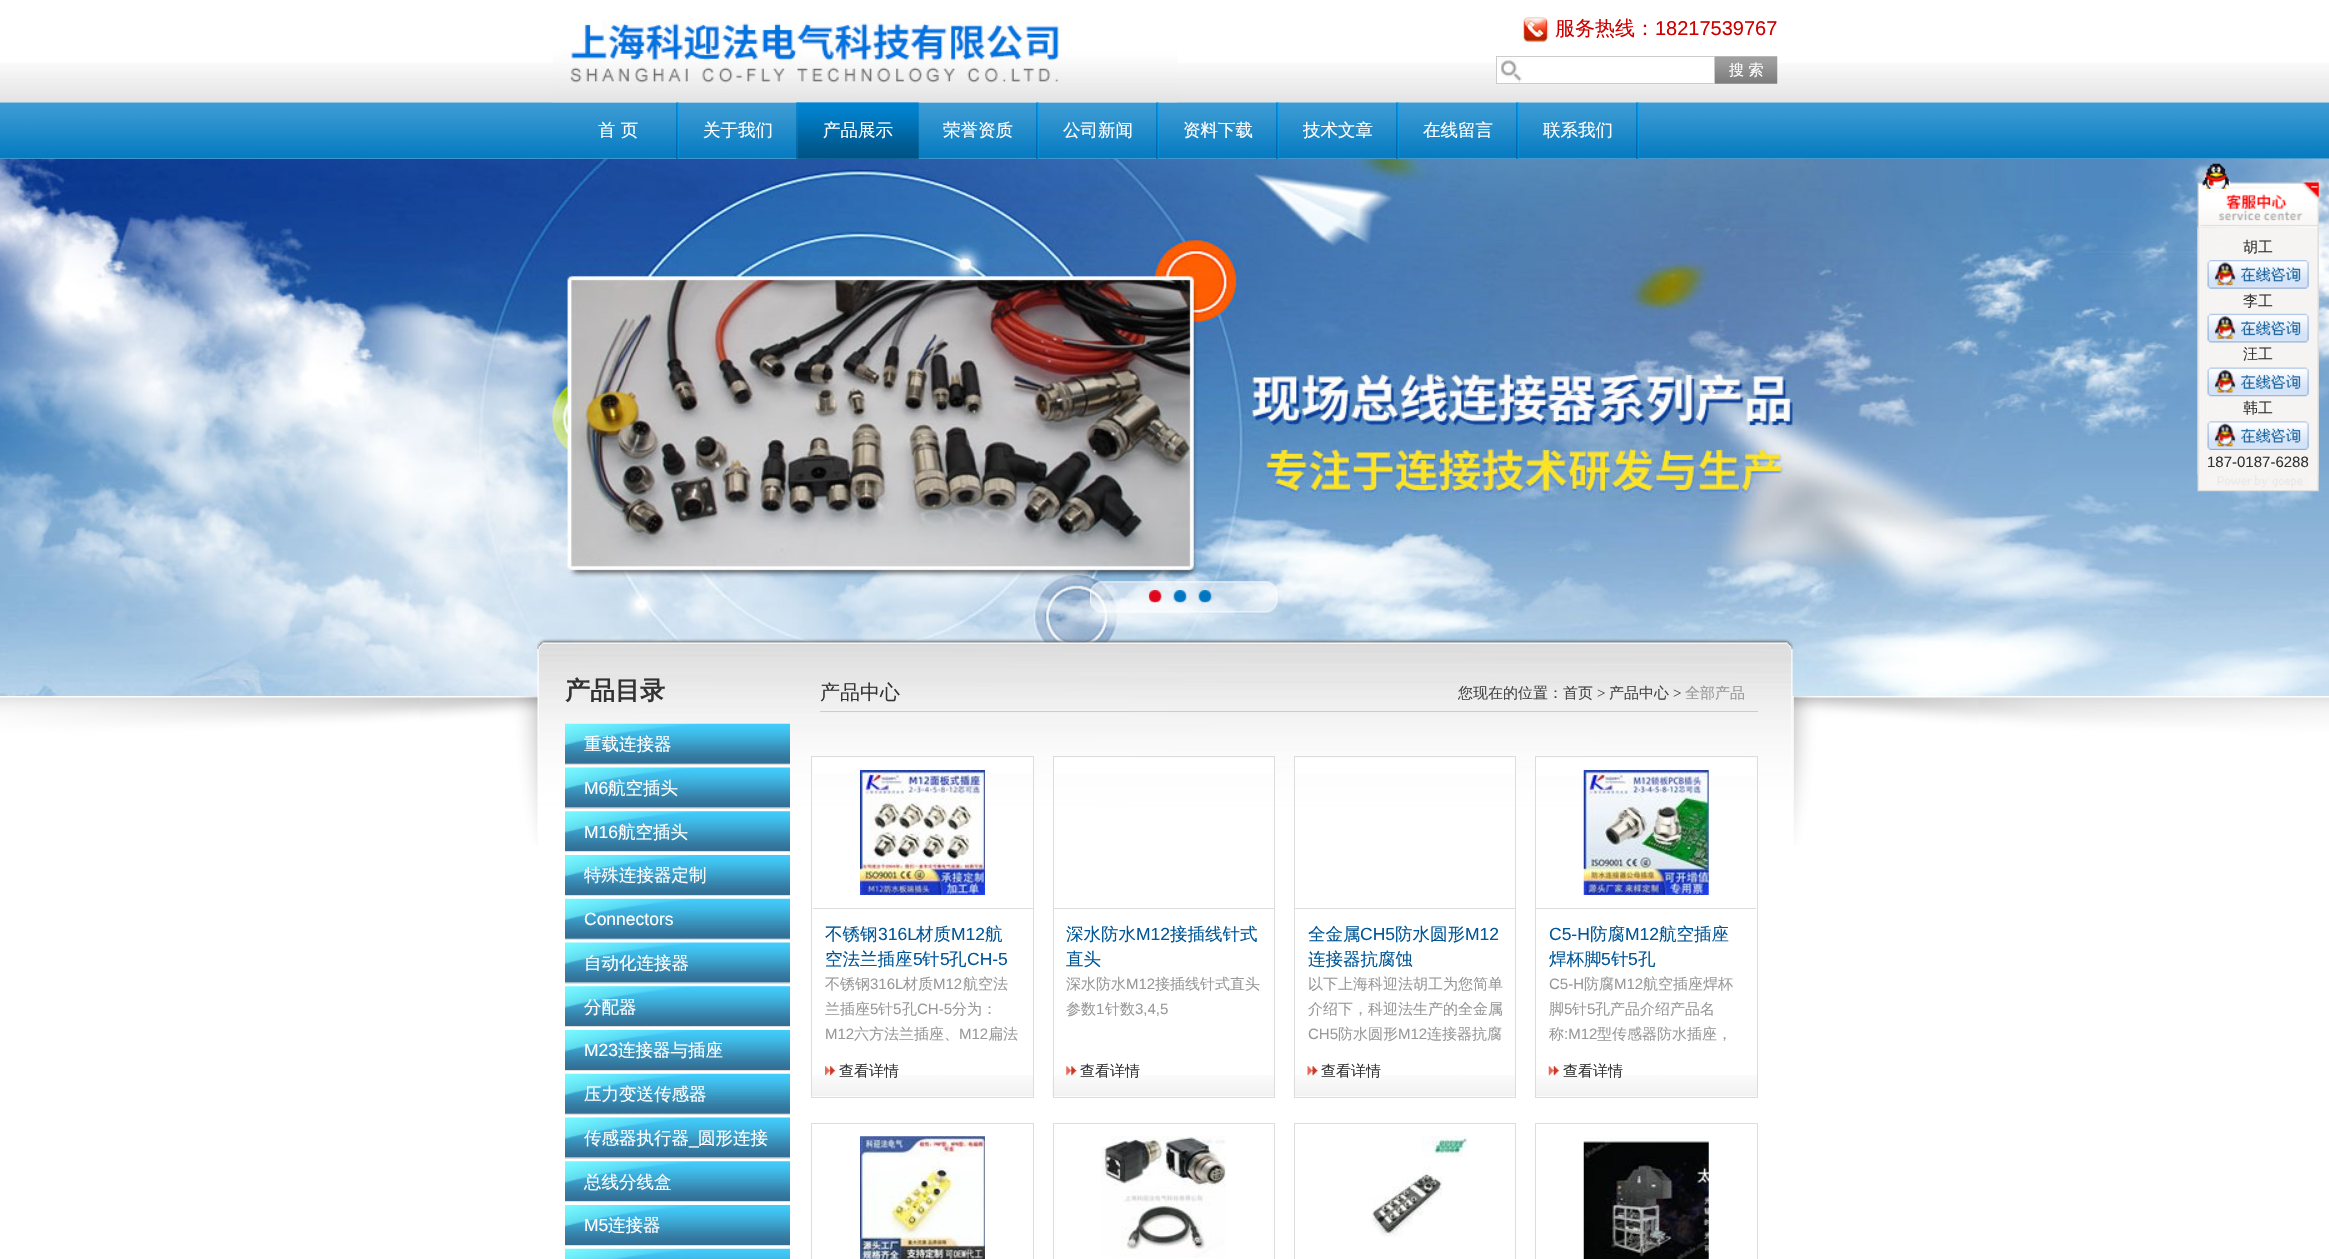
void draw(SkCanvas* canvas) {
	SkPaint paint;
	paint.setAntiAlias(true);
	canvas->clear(0xffffffff);
	canvas->drawImageRect(SkImages::DeferredFromEncodedData(SkData::MakeFromFileName("img1.png")), SkRect::MakeXYWH(0, 63, 2329, 40), SkSamplingOptions());
	canvas->drawImageRect(SkImages::DeferredFromEncodedData(SkData::MakeFromFileName("img6.png")), SkRect::MakeXYWH(0, 102, 2329, 57), SkSamplingOptions());
	canvas->drawImageRect(SkImages::DeferredFromEncodedData(SkData::MakeFromFileName("img2.png")), SkRect::MakeXYWH(552, 20, 626, 83), SkSamplingOptions());
	canvas->drawImageRect(SkImages::DeferredFromEncodedData(SkData::MakeFromFileName("img3.png")), SkRect::MakeXYWH(1523, 17, 26, 26), SkSamplingOptions());
	SkFont f1(fontMgr->matchFamilyStyle("WenQuanYi Zen Hei", SkFontStyle(500, SkFontStyle::kNormal_Width, SkFontStyle::kUpright_Slant)), 20);
	f1.setSubpixel(true);
	paint.setColor(0xffcc0000);
	canvas->drawString("服务热线：", 1555, 35, f1, paint);
	SkFont f2(fontMgr->matchFamilyStyle("Liberation Sans", SkFontStyle::Normal()), 20);
	f2.setSubpixel(true);
	canvas->drawString("18217539767", 1655, 35, f2, paint);
	paint.setColor(0xffffffff);
	canvas->drawRect(SkRect::MakeXYWH(1497, 63, 217, 20), paint);
	canvas->drawImageRect(SkImages::DeferredFromEncodedData(SkData::MakeFromFileName("img4.png")), SkRect::MakeXYWH(1501, 57, 21, 26), SkSamplingOptions());
	paint.setStroke(true);
	paint.setStrokeWidth(1);
	paint.setColor(0xffcccccc);
	canvas->drawRect(SkRect::MakeXYWH(1496.5, 56.5, 218, 27), paint);
	canvas->drawImageRect(SkImages::DeferredFromEncodedData(SkData::MakeFromFileName("img5.png")), SkRect::MakeXYWH(1715, 56, 63, 28), SkSamplingOptions());
	SkFont f3(fontMgr->matchFamilyStyle("WenQuanYi Zen Hei", SkFontStyle(500, SkFontStyle::kNormal_Width, SkFontStyle::kUpright_Slant)), 15);
	f3.setSubpixel(true);
	paint.setStroke(false);
	paint.setColor(0xffffffff);
	canvas->drawString("搜 索", 1729, 75, f3, paint);
	canvas->drawImageRect(SkImages::DeferredFromEncodedData(SkData::MakeFromFileName("img7.png")), SkRect::MakeXYWH(676, 102, 3, 57), SkSamplingOptions());
	SkFont f4(fontMgr->matchFamilyStyle("WenQuanYi Zen Hei", SkFontStyle(500, SkFontStyle::kNormal_Width, SkFontStyle::kUpright_Slant)), 17.5);
	f4.setSubpixel(true);
	canvas->drawString("首 页", 598, 136, f4, paint);
	canvas->drawImageRect(SkImages::DeferredFromEncodedData(SkData::MakeFromFileName("img7.png")), SkRect::MakeXYWH(796, 102, 3, 57), SkSamplingOptions());
	canvas->drawString("关于我们", 703, 136, f4, paint);
	canvas->drawImageRect(SkImages::DeferredFromEncodedData(SkData::MakeFromFileName("img8.png")), SkRect::MakeXYWH(797, 102, 122, 57), SkSamplingOptions());
	canvas->drawString("产品展示", 823, 136, f4, paint);
	canvas->drawImageRect(SkImages::DeferredFromEncodedData(SkData::MakeFromFileName("img7.png")), SkRect::MakeXYWH(1036, 102, 3, 57), SkSamplingOptions());
	canvas->drawString("荣誉资质", 943, 136, f4, paint);
	canvas->drawImageRect(SkImages::DeferredFromEncodedData(SkData::MakeFromFileName("img7.png")), SkRect::MakeXYWH(1156, 102, 3, 57), SkSamplingOptions());
	canvas->drawString("公司新闻", 1063, 136, f4, paint);
	canvas->drawImageRect(SkImages::DeferredFromEncodedData(SkData::MakeFromFileName("img9.png")), SkRect::MakeXYWH(1276, 102, 3, 57), SkSamplingOptions());
	canvas->drawString("资料下载", 1183, 136, f4, paint);
	canvas->drawImageRect(SkImages::DeferredFromEncodedData(SkData::MakeFromFileName("img10.png")), SkRect::MakeXYWH(1396, 102, 3, 57), SkSamplingOptions());
	canvas->drawString("技术文章", 1303, 136, f4, paint);
	canvas->drawImageRect(SkImages::DeferredFromEncodedData(SkData::MakeFromFileName("img10.png")), SkRect::MakeXYWH(1516, 102, 3, 57), SkSamplingOptions());
	canvas->drawString("在线留言", 1423, 136, f4, paint);
	canvas->drawImageRect(SkImages::DeferredFromEncodedData(SkData::MakeFromFileName("img10.png")), SkRect::MakeXYWH(1636, 102, 3, 57), SkSamplingOptions());
	canvas->drawString("联系我们", 1543, 136, f4, paint);
	canvas->drawImageRect(SkImages::DeferredFromEncodedData(SkData::MakeFromFileName("img16.png")), SkRect::MakeXYWH(0, 696, 2329, 149), SkSamplingOptions());
	canvas->drawImageRect(SkImages::DeferredFromEncodedData(SkData::MakeFromFileName("img11.png")), SkRect::MakeXYWH(0, 158, 2329, 539), SkSamplingOptions());
	canvas->drawImageRect(SkImages::DeferredFromEncodedData(SkData::MakeFromFileName("img12.png")), SkRect::MakeXYWH(1090, 581, 188, 32), SkSamplingOptions());
	canvas->drawImageRect(SkImages::DeferredFromEncodedData(SkData::MakeFromFileName("img13.png")), SkRect::MakeXYWH(1148, 590, 14, 13), SkSamplingOptions());
	canvas->drawImageRect(SkImages::DeferredFromEncodedData(SkData::MakeFromFileName("img14.png")), SkRect::MakeXYWH(1173, 590, 14, 13), SkSamplingOptions());
	canvas->drawImageRect(SkImages::DeferredFromEncodedData(SkData::MakeFromFileName("img15.png")), SkRect::MakeXYWH(1198, 590, 14, 13), SkSamplingOptions());
	canvas->drawImageRect(SkImages::DeferredFromEncodedData(SkData::MakeFromFileName("img18.png")), SkRect::MakeXYWH(2197, 227, 122, 248), SkSamplingOptions());
	canvas->drawImageRect(SkImages::DeferredFromEncodedData(SkData::MakeFromFileName("img17.png")), SkRect::MakeXYWH(2197, 163, 122, 65), SkSamplingOptions());
	paint.setColor(0xff333333);
	canvas->drawString("胡工", 2243, 252, f3, paint);
	canvas->drawImageRect(SkImages::DeferredFromEncodedData(SkData::MakeFromFileName("img19.png")), SkRect::MakeXYWH(2207, 260, 102, 29), SkSamplingOptions());
	canvas->drawString("李工", 2243, 306, f3, paint);
	canvas->drawImageRect(SkImages::DeferredFromEncodedData(SkData::MakeFromFileName("img20.png")), SkRect::MakeXYWH(2207, 313, 102, 30), SkSamplingOptions());
	canvas->drawString("汪工", 2243, 359, f3, paint);
	canvas->drawImageRect(SkImages::DeferredFromEncodedData(SkData::MakeFromFileName("img21.png")), SkRect::MakeXYWH(2207, 367, 102, 30), SkSamplingOptions());
	canvas->drawString("韩工", 2243, 413, f3, paint);
	canvas->drawImageRect(SkImages::DeferredFromEncodedData(SkData::MakeFromFileName("img22.png")), SkRect::MakeXYWH(2207, 421, 102, 29), SkSamplingOptions());
	SkFont f5(fontMgr->matchFamilyStyle("Liberation Sans", SkFontStyle::Normal()), 15);
	f5.setSubpixel(true);
	canvas->drawString("187-0187-6288", 2207, 467, f5, paint);
	canvas->drawImageRect(SkImages::DeferredFromEncodedData(SkData::MakeFromFileName("img23.png")), SkRect::MakeXYWH(2197, 475, 122, 17), SkSamplingOptions());
	canvas->drawImageRect(SkImages::DeferredFromEncodedData(SkData::MakeFromFileName("img24.png")), SkRect::MakeXYWH(537, 638, 1256, 206), SkSamplingOptions());
	SkFont f6(fontMgr->matchFamilyStyle("WenQuanYi Zen Hei", SkFontStyle::Bold()), 25);
	f6.setSubpixel(true);
	canvas->drawString("产品目录", 565, 699, f6, paint);
	canvas->drawImageRect(SkImages::DeferredFromEncodedData(SkData::MakeFromFileName("img25.png")), SkRect::MakeXYWH(565, 723, 225, 41), SkSamplingOptions());
	paint.setColor(0xffdddddd);
	canvas->drawRect(SkRect::MakeXYWH(565, 764, 225, 1), paint);
	paint.setColor(0xffffffff);
	canvas->drawString("重载连接器", 584, 750, f4, paint);
	canvas->drawImageRect(SkImages::DeferredFromEncodedData(SkData::MakeFromFileName("img26.png")), SkRect::MakeXYWH(565, 767, 225, 41), SkSamplingOptions());
	paint.setColor(0xffdddddd);
	canvas->drawRect(SkRect::MakeXYWH(565, 808, 225, 1), paint);
	SkFont f7(fontMgr->matchFamilyStyle("Liberation Sans", SkFontStyle::Normal()), 17.5);
	f7.setSubpixel(true);
	paint.setColor(0xffffffff);
	canvas->drawString("M6", 584, 794, f7, paint);
	canvas->drawString("航空插头", 608, 794, f4, paint);
	canvas->drawImageRect(SkImages::DeferredFromEncodedData(SkData::MakeFromFileName("img27.png")), SkRect::MakeXYWH(565, 811, 225, 40), SkSamplingOptions());
	paint.setColor(0xffdddddd);
	canvas->drawRect(SkRect::MakeXYWH(565, 851, 225, 1), paint);
	paint.setColor(0xffffffff);
	canvas->drawString("M16", 584, 838, f7, paint);
	canvas->drawString("航空插头", 618, 838, f4, paint);
	canvas->drawImageRect(SkImages::DeferredFromEncodedData(SkData::MakeFromFileName("img28.png")), SkRect::MakeXYWH(565, 855, 225, 40), SkSamplingOptions());
	paint.setColor(0xffdddddd);
	canvas->drawRect(SkRect::MakeXYWH(565, 895, 225, 1), paint);
	paint.setColor(0xffffffff);
	canvas->drawString("特殊连接器定制", 584, 881, f4, paint);
	canvas->drawImageRect(SkImages::DeferredFromEncodedData(SkData::MakeFromFileName("img29.png")), SkRect::MakeXYWH(565, 898, 225, 41), SkSamplingOptions());
	paint.setColor(0xffdddddd);
	canvas->drawRect(SkRect::MakeXYWH(565, 939, 225, 1), paint);
	paint.setColor(0xffffffff);
	canvas->drawString("Connectors", 584, 925, f7, paint);
	canvas->drawImageRect(SkImages::DeferredFromEncodedData(SkData::MakeFromFileName("img30.png")), SkRect::MakeXYWH(565, 942, 225, 41), SkSamplingOptions());
	paint.setColor(0xffdddddd);
	canvas->drawRect(SkRect::MakeXYWH(565, 983, 225, 1), paint);
	paint.setColor(0xffffffff);
	canvas->drawString("自动化连接器", 584, 969, f4, paint);
	canvas->drawImageRect(SkImages::DeferredFromEncodedData(SkData::MakeFromFileName("img27.png")), SkRect::MakeXYWH(565, 986, 225, 40), SkSamplingOptions());
	paint.setColor(0xffdddddd);
	canvas->drawRect(SkRect::MakeXYWH(565, 1026, 225, 1), paint);
	paint.setColor(0xffffffff);
	canvas->drawString("分配器", 584, 1013, f4, paint);
	canvas->drawImageRect(SkImages::DeferredFromEncodedData(SkData::MakeFromFileName("img28.png")), SkRect::MakeXYWH(565, 1030, 225, 40), SkSamplingOptions());
	paint.setColor(0xffdddddd);
	canvas->drawRect(SkRect::MakeXYWH(565, 1070, 225, 1), paint);
	paint.setColor(0xffffffff);
	canvas->drawString("M23", 584, 1056, f7, paint);
	canvas->drawString("连接器与插座", 618, 1056, f4, paint);
	canvas->drawImageRect(SkImages::DeferredFromEncodedData(SkData::MakeFromFileName("img29.png")), SkRect::MakeXYWH(565, 1073, 225, 41), SkSamplingOptions());
	paint.setColor(0xffdddddd);
	canvas->drawRect(SkRect::MakeXYWH(565, 1114, 225, 1), paint);
	paint.setColor(0xffffffff);
	canvas->drawString("压力变送传感器", 584, 1100, f4, paint);
	canvas->drawImageRect(SkImages::DeferredFromEncodedData(SkData::MakeFromFileName("img30.png")), SkRect::MakeXYWH(565, 1117, 225, 41), SkSamplingOptions());
	paint.setColor(0xffdddddd);
	canvas->drawRect(SkRect::MakeXYWH(565, 1158, 225, 1), paint);
	paint.setColor(0xffffffff);
	canvas->drawString("传感器执行器", 584, 1144, f4, paint);
	canvas->drawString("_", 689, 1144, f7, paint);
	canvas->drawString("圆形连接", 698, 1144, f4, paint);
	canvas->drawImageRect(SkImages::DeferredFromEncodedData(SkData::MakeFromFileName("img31.png")), SkRect::MakeXYWH(565, 1161, 225, 40), SkSamplingOptions());
	paint.setColor(0xffdddddd);
	canvas->drawRect(SkRect::MakeXYWH(565, 1201, 225, 1), paint);
	paint.setColor(0xffffffff);
	canvas->drawString("总线分线盒", 584, 1188, f4, paint);
	canvas->drawImageRect(SkImages::DeferredFromEncodedData(SkData::MakeFromFileName("img28.png")), SkRect::MakeXYWH(565, 1205, 225, 40), SkSamplingOptions());
	paint.setColor(0xffdddddd);
	canvas->drawRect(SkRect::MakeXYWH(565, 1245, 225, 1), paint);
	paint.setColor(0xffffffff);
	canvas->drawString("M5", 584, 1231, f7, paint);
	canvas->drawString("连接器", 608, 1231, f4, paint);
	canvas->drawImageRect(SkImages::DeferredFromEncodedData(SkData::MakeFromFileName("img32.png")), SkRect::MakeXYWH(565, 1248, 225, 11), SkSamplingOptions());
	paint.setColor(0xffcccccc);
	canvas->drawRect(SkRect::MakeXYWH(820, 711, 938, 1), paint);
	paint.setColor(0xff333333);
	canvas->drawString("产品中心", 820, 699, f1, paint);
	paint.setColor(0xff444444);
	canvas->drawString("您现在的位置：首页", 1458, 698, f3, paint);
	SkFont f8(fontMgr->matchFamilyStyle("Liberation Serif", SkFontStyle::Normal()), 15);
	f8.setSubpixel(true);
	canvas->drawString(">", 1597, 698, f8, paint);
	canvas->drawString("产品中心", 1609, 698, f3, paint);
	canvas->drawString(">", 1673, 698, f8, paint);
	paint.setColor(0xff999999);
	canvas->drawString("全部产品", 1685, 698, f3, paint);
	canvas->drawImageRect(SkImages::DeferredFromEncodedData(SkData::MakeFromFileName("img33.png")), SkRect::MakeXYWH(812, 1075, 221, 22), SkSamplingOptions());
	paint.setStroke(true);
	paint.setColor(0xffdddddd);
	canvas->drawRect(SkRect::MakeXYWH(811.5, 756.5, 222, 341), paint);
	paint.setStroke(false);
	paint.setColor(0xffffffff);
	canvas->drawRect(SkRect::MakeXYWH(813, 758, 220, 15), paint);
	paint.setColor(0xffdddddd);
	canvas->drawRect(SkRect::MakeXYWH(813, 908, 220, 1), paint);
	canvas->drawImageRect(SkImages::DeferredFromEncodedData(SkData::MakeFromFileName("img34.png")), SkRect::MakeXYWH(860, 770, 125, 125), SkSamplingOptions());
	paint.setColor(0xff025797);
	canvas->drawString("不锈钢", 825, 940, f4, paint);
	canvas->drawString("316L", 878, 940, f7, paint);
	canvas->drawString("材质", 916, 940, f4, paint);
	canvas->drawString("M12", 951, 940, f7, paint);
	canvas->drawString("航", 985, 940, f4, paint);
	canvas->drawString("空法兰插座", 825, 965, f4, paint);
	canvas->drawString("5", 913, 965, f7, paint);
	canvas->drawString("针", 922, 965, f4, paint);
	canvas->drawString("5", 940, 965, f7, paint);
	canvas->drawString("孔", 949, 965, f4, paint);
	canvas->drawString("CH-5", 967, 965, f7, paint);
	paint.setColor(0xff999999);
	canvas->drawString("不锈钢", 825, 989, f3, paint);
	canvas->drawString("316L", 870, 989, f5, paint);
	canvas->drawString("材质", 903, 989, f3, paint);
	canvas->drawString("M12", 933, 989, f5, paint);
	canvas->drawString("航空法", 963, 989, f3, paint);
	canvas->drawString("兰插座", 825, 1014, f3, paint);
	canvas->drawString("5", 870, 1014, f5, paint);
	canvas->drawString("针", 878, 1014, f3, paint);
	canvas->drawString("5", 893, 1014, f5, paint);
	canvas->drawString("孔", 902, 1014, f3, paint);
	canvas->drawString("CH-5", 917, 1014, f5, paint);
	canvas->drawString("分为：", 952, 1014, f3, paint);
	canvas->drawString("M12", 825, 1039, f5, paint);
	canvas->drawString("六方法兰插座、", 854, 1039, f3, paint);
	canvas->drawString("M12", 959, 1039, f5, paint);
	canvas->drawString("扁法", 988, 1039, f3, paint);
	canvas->drawImageRect(SkImages::DeferredFromEncodedData(SkData::MakeFromFileName("img35.png")), SkRect::MakeXYWH(825, 1066, 11, 10), SkSamplingOptions());
	paint.setColor(0xff333333);
	canvas->drawString("查看详情", 839, 1076, f3, paint);
	canvas->drawImageRect(SkImages::DeferredFromEncodedData(SkData::MakeFromFileName("img36.png")), SkRect::MakeXYWH(1052, 1075, 222, 22), SkSamplingOptions());
	paint.setStroke(true);
	paint.setColor(0xffdddddd);
	canvas->drawRect(SkRect::MakeXYWH(1053.5, 756.5, 221, 341), paint);
	paint.setStroke(false);
	paint.setColor(0xffffffff);
	canvas->drawRect(SkRect::MakeXYWH(1054, 758, 220, 16), paint);
	paint.setColor(0xffdddddd);
	canvas->drawRect(SkRect::MakeXYWH(1054, 908, 220, 1), paint);
	paint.setColor(0xff025797);
	canvas->drawString("深水防水", 1066, 940, f4, paint);
	canvas->drawString("M12", 1136, 940, f7, paint);
	canvas->drawString("接插线针式", 1170, 940, f4, paint);
	canvas->drawString("直头", 1066, 965, f4, paint);
	paint.setColor(0xff999999);
	canvas->drawString("深水防水", 1066, 989, f3, paint);
	canvas->drawString("M12", 1126, 989, f5, paint);
	canvas->drawString("接插线针式直头", 1155, 989, f3, paint);
	canvas->drawString("参数", 1066, 1014, f3, paint);
	canvas->drawString("1", 1096, 1014, f5, paint);
	canvas->drawString("针数", 1105, 1014, f3, paint);
	canvas->drawString("3,4,5", 1135, 1014, f5, paint);
	canvas->drawImageRect(SkImages::DeferredFromEncodedData(SkData::MakeFromFileName("img37.png")), SkRect::MakeXYWH(1066, 1066, 11, 10), SkSamplingOptions());
	paint.setColor(0xff333333);
	canvas->drawString("查看详情", 1080, 1076, f3, paint);
	canvas->drawImageRect(SkImages::DeferredFromEncodedData(SkData::MakeFromFileName("img38.png")), SkRect::MakeXYWH(1293, 1075, 222, 22), SkSamplingOptions());
	paint.setStroke(true);
	paint.setColor(0xffdddddd);
	canvas->drawRect(SkRect::MakeXYWH(1294.5, 756.5, 221, 341), paint);
	paint.setStroke(false);
	paint.setColor(0xffffffff);
	canvas->drawRect(SkRect::MakeXYWH(1295, 758, 220, 16), paint);
	paint.setColor(0xffdddddd);
	canvas->drawRect(SkRect::MakeXYWH(1295, 908, 220, 1), paint);
	paint.setColor(0xff025797);
	canvas->drawString("全金属", 1308, 940, f4, paint);
	canvas->drawString("CH5", 1360, 940, f7, paint);
	canvas->drawString("防水圆形", 1395, 940, f4, paint);
	canvas->drawString("M12", 1465, 940, f7, paint);
	canvas->drawString("连接器抗腐蚀", 1308, 965, f4, paint);
	paint.setColor(0xff999999);
	canvas->drawString("以下上海科迎法胡工为您简单", 1308, 989, f3, paint);
	canvas->drawString("介绍下，科迎法生产的全金属", 1308, 1014, f3, paint);
	canvas->drawString("CH5", 1308, 1039, f5, paint);
	canvas->drawString("防水圆形", 1338, 1039, f3, paint);
	canvas->drawString("M12", 1398, 1039, f5, paint);
	canvas->drawString("连接器抗腐", 1427, 1039, f3, paint);
	canvas->drawImageRect(SkImages::DeferredFromEncodedData(SkData::MakeFromFileName("img39.png")), SkRect::MakeXYWH(1307, 1066, 11, 10), SkSamplingOptions());
	paint.setColor(0xff333333);
	canvas->drawString("查看详情", 1321, 1076, f3, paint);
	canvas->drawImageRect(SkImages::DeferredFromEncodedData(SkData::MakeFromFileName("img40.png")), SkRect::MakeXYWH(1536, 1075, 221, 22), SkSamplingOptions());
	paint.setStroke(true);
	paint.setColor(0xffdddddd);
	canvas->drawRect(SkRect::MakeXYWH(1535.5, 756.5, 222, 341), paint);
	paint.setStroke(false);
	paint.setColor(0xffffffff);
	canvas->drawRect(SkRect::MakeXYWH(1536, 758, 220, 18), paint);
	paint.setColor(0xffdddddd);
	canvas->drawRect(SkRect::MakeXYWH(1536, 908, 220, 1), paint);
	canvas->drawImageRect(SkImages::DeferredFromEncodedData(SkData::MakeFromFileName("img41.png")), SkRect::MakeXYWH(1583, 770, 126, 125), SkSamplingOptions());
	paint.setColor(0xff025797);
	canvas->drawString("C5-H", 1549, 940, f7, paint);
	canvas->drawString("防腐", 1590, 940, f4, paint);
	canvas->drawString("M12", 1625, 940, f7, paint);
	canvas->drawString("航空插座", 1659, 940, f4, paint);
	canvas->drawString("焊杯脚", 1549, 965, f4, paint);
	canvas->drawString("5", 1601, 965, f7, paint);
	canvas->drawString("针", 1611, 965, f4, paint);
	canvas->drawString("5", 1628, 965, f7, paint);
	canvas->drawString("孔", 1638, 965, f4, paint);
	paint.setColor(0xff999999);
	canvas->drawString("C5-H", 1549, 989, f5, paint);
	canvas->drawString("防腐", 1584, 989, f3, paint);
	canvas->drawString("M12", 1614, 989, f5, paint);
	canvas->drawString("航空插座焊杯", 1643, 989, f3, paint);
	canvas->drawString("脚", 1549, 1014, f3, paint);
	canvas->drawString("5", 1564, 1014, f5, paint);
	canvas->drawString("针", 1572, 1014, f3, paint);
	canvas->drawString("5", 1587, 1014, f5, paint);
	canvas->drawString("孔产品介绍产品名", 1595, 1014, f3, paint);
	canvas->drawString("称", 1549, 1039, f3, paint);
	canvas->drawString(":M12", 1564, 1039, f5, paint);
	canvas->drawString("型传感器防水插座，", 1597, 1039, f3, paint);
	canvas->drawImageRect(SkImages::DeferredFromEncodedData(SkData::MakeFromFileName("img42.png")), SkRect::MakeXYWH(1548, 1066, 12, 10), SkSamplingOptions());
	paint.setColor(0xff333333);
	canvas->drawString("查看详情", 1563, 1076, f3, paint);
	paint.setStroke(true);
	paint.setColor(0xffdddddd);
	canvas->drawRect(SkRect::MakeXYWH(811.5, 1123.5, 222, 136), paint);
	canvas->drawImageRect(SkImages::DeferredFromEncodedData(SkData::MakeFromFileName("img43.png")), SkRect::MakeXYWH(860, 1136, 125, 123), SkSamplingOptions());
	canvas->drawRect(SkRect::MakeXYWH(1053.5, 1123.5, 221, 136), paint);
	canvas->drawImageRect(SkImages::DeferredFromEncodedData(SkData::MakeFromFileName("img44.png")), SkRect::MakeXYWH(1101, 1136, 125, 122), SkSamplingOptions());
	canvas->drawRect(SkRect::MakeXYWH(1294.5, 1123.5, 221, 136), paint);
	canvas->drawImageRect(SkImages::DeferredFromEncodedData(SkData::MakeFromFileName("img45.png")), SkRect::MakeXYWH(1371, 1136, 97, 101), SkSamplingOptions());
	canvas->drawRect(SkRect::MakeXYWH(1535.5, 1123.5, 222, 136), paint);
	canvas->drawImageRect(SkImages::DeferredFromEncodedData(SkData::MakeFromFileName("img46.png")), SkRect::MakeXYWH(1583, 1137, 126, 122), SkSamplingOptions());
}
